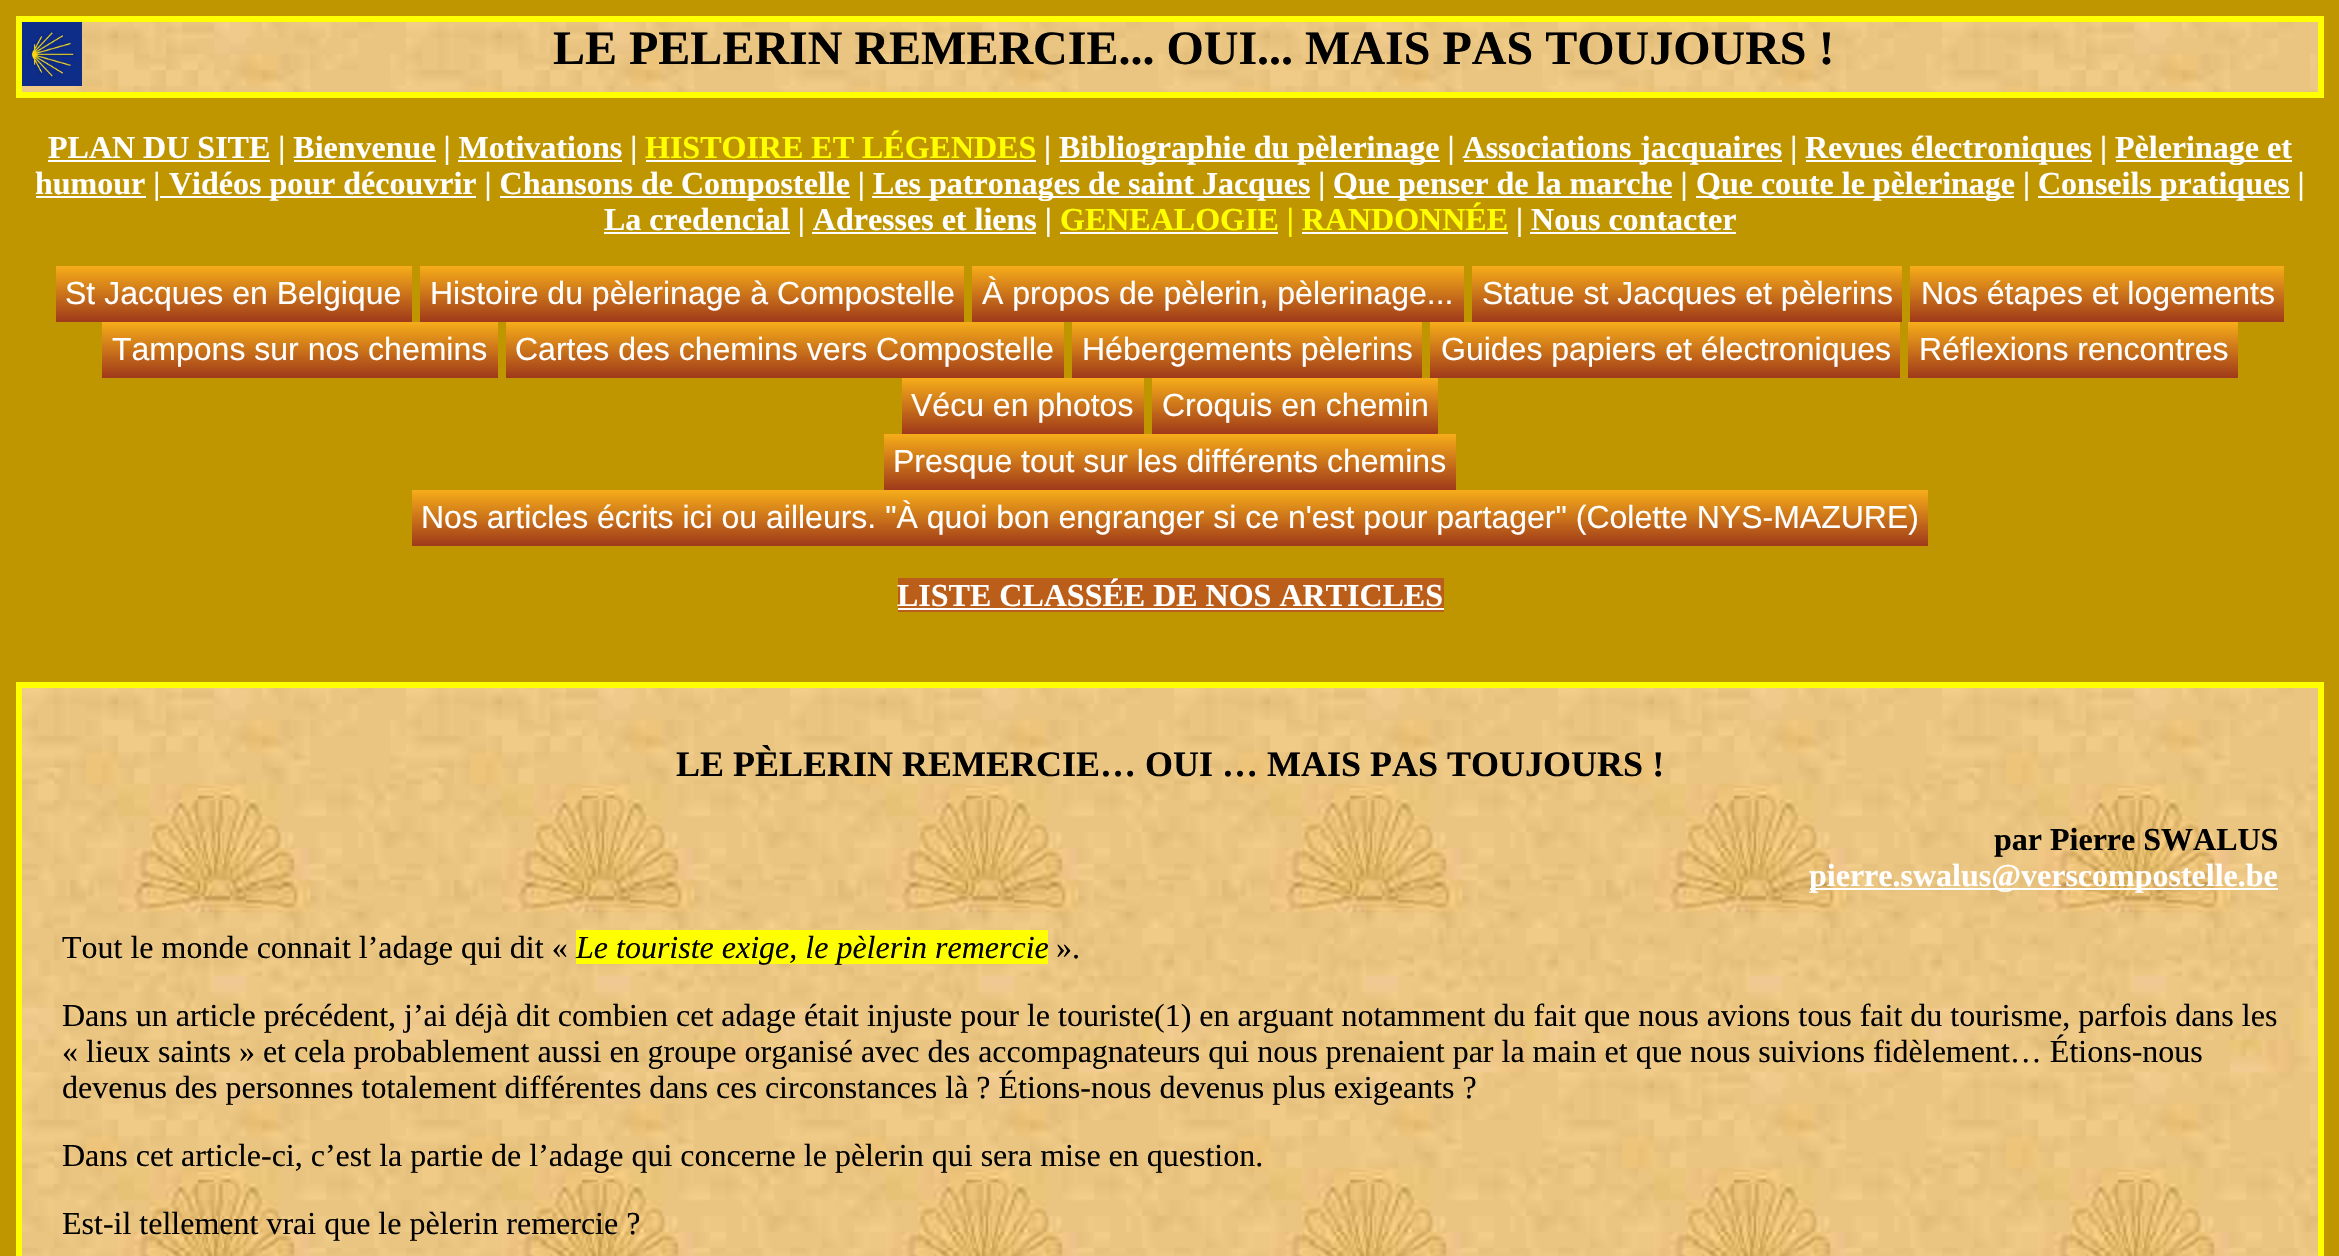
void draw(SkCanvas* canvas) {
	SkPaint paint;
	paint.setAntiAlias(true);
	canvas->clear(0xffbf9500);
	paint.setStroke(true);
	paint.setStrokeWidth(4);
	paint.setColor(0xffffff00);
	canvas->drawRect(SkRect::MakeXYWH(18, 18, 2304, 78), paint);
	canvas->drawImageRect(SkImages::DeferredFromEncodedData(SkData::MakeFromFileName("img1.png")), SkRect::MakeXYWH(22, 22, 2296, 70), SkSamplingOptions());
	paint.setStrokeWidth(2);
	canvas->drawRect(SkRect::MakeXYWH(21, 21, 2298, 72), paint);
	canvas->drawImageRect(SkImages::DeferredFromEncodedData(SkData::MakeFromFileName("img2.png")), SkRect::MakeXYWH(22, 22, 60, 64), SkSamplingOptions());
	SkFont f1(fontMgr->matchFamilyStyle("Liberation Serif", SkFontStyle::Bold()), 48);
	f1.setSubpixel(true);
	paint.setStroke(false);
	paint.setColor(0xff000000);
	canvas->drawString("LE PELERIN REMERCIE... OUI... MAIS PAS TOUJOURS !", 553, 64, f1, paint);
	paint.setColor(0xffffffff);
	canvas->drawRect(SkRect::MakeXYWH(48, 160, 222, 2), paint);
	SkFont f2(fontMgr->matchFamilyStyle("Liberation Serif", SkFontStyle::Bold()), 32);
	f2.setSubpixel(true);
	canvas->drawString("PLAN DU SITE | Bienvenue | Motivations |", 48, 158, f2, paint);
	canvas->drawRect(SkRect::MakeXYWH(294, 160, 142, 2), paint);
	canvas->drawRect(SkRect::MakeXYWH(458, 160, 164, 2), paint);
	paint.setColor(0xffffff00);
	canvas->drawString("HISTOIRE ET LÉGENDES", 645, 158, f2, paint);
	paint.setColor(0xffffffff);
	canvas->drawString("|", 1044, 158, f2, paint);
	canvas->drawRect(SkRect::MakeXYWH(646, 160, 390, 2), paint);
	canvas->drawRect(SkRect::MakeXYWH(1060, 160, 380, 2), paint);
	canvas->drawString("Bibliographie du pèlerinage | Associations", 1059, 158, f2, paint);
	canvas->drawRect(SkRect::MakeXYWH(1464, 160, 318, 2), paint);
	canvas->drawString("jacquaires |", 1640, 158, f2, paint);
	canvas->drawRect(SkRect::MakeXYWH(1806, 160, 286, 2), paint);
	canvas->drawString("Revues électroniques |", 1805, 158, f2, paint);
	canvas->drawRect(SkRect::MakeXYWH(2116, 160, 176, 2), paint);
	canvas->drawString("Pèlerinage et", 2115, 158, f2, paint);
	canvas->drawRect(SkRect::MakeXYWH(36, 196, 110, 2), paint);
	canvas->drawString("humour |", 35, 194, f2, paint);
	canvas->drawRect(SkRect::MakeXYWH(160, 196, 316, 2), paint);
	canvas->drawString("Vidéos pour découvrir | Chansons", 169, 194, f2, paint);
	canvas->drawRect(SkRect::MakeXYWH(500, 196, 350, 2), paint);
	canvas->drawString("de Compostelle |", 641, 194, f2, paint);
	canvas->drawRect(SkRect::MakeXYWH(872, 196, 438, 2), paint);
	canvas->drawString("Les patronages de saint Jacques |", 873, 194, f2, paint);
	canvas->drawRect(SkRect::MakeXYWH(1334, 196, 338, 2), paint);
	canvas->drawString("Que penser de la marche |", 1333, 194, f2, paint);
	canvas->drawRect(SkRect::MakeXYWH(1696, 196, 318, 2), paint);
	canvas->drawString("Que coute le pèlerinage |", 1696, 194, f2, paint);
	canvas->drawRect(SkRect::MakeXYWH(2038, 196, 252, 2), paint);
	canvas->drawString("Conseils pratiques |", 2038, 194, f2, paint);
	canvas->drawRect(SkRect::MakeXYWH(604, 232, 186, 2), paint);
	canvas->drawString("La credencial | Adresses et liens |", 604, 230, f2, paint);
	canvas->drawRect(SkRect::MakeXYWH(812, 232, 224, 2), paint);
	canvas->drawRect(SkRect::MakeXYWH(1060, 232, 218, 2), paint);
	paint.setColor(0xffffff00);
	canvas->drawString("GENEALOGIE | RANDONNÉE", 1060, 230, f2, paint);
	paint.setColor(0xffffffff);
	canvas->drawRect(SkRect::MakeXYWH(1302, 232, 206, 2), paint);
	canvas->drawString("| Nous contacter", 1516, 230, f2, paint);
	canvas->drawRect(SkRect::MakeXYWH(1530, 232, 206, 2), paint);
	{
		const SkColor colors[] = {0xfff6ad1a, 0xff9f391a};
		const float stops[] = {0, 1};
		const SkPoint ends[] = {{234, 266}, {234, 322}};
		paint.setShader(SkGradientShader::MakeLinear(ends, colors, stops, 2, SkTileMode::kClamp));
		paint.setAlpha(255);
	}
	canvas->drawRect(SkRect::MakeXYWH(56, 266, 356, 56), paint);
	SkFont f3(fontMgr->matchFamilyStyle("Liberation Sans", SkFontStyle::Normal()), 32);
	f3.setSubpixel(true);
	paint.setShader(nullptr);
	paint.setColor(0xffffffff);
	canvas->drawString("St Jacques en Belgique", 65, 304, f3, paint);
	{
		const SkColor colors[] = {0xfff6ad1a, 0xff9f391a};
		const float stops[] = {0, 1};
		const SkPoint ends[] = {{692, 266}, {692, 322}};
		paint.setShader(SkGradientShader::MakeLinear(ends, colors, stops, 2, SkTileMode::kClamp));
		paint.setAlpha(255);
	}
	canvas->drawRect(SkRect::MakeXYWH(420, 266, 544, 56), paint);
	paint.setShader(nullptr);
	paint.setColor(0xffffffff);
	canvas->drawString("Histoire du pèlerinage à Compostelle", 430, 304, f3, paint);
	{
		const SkColor colors[] = {0xfff6ad1a, 0xff9f391a};
		const float stops[] = {0, 1};
		const SkPoint ends[] = {{1218, 266}, {1218, 322}};
		paint.setShader(SkGradientShader::MakeLinear(ends, colors, stops, 2, SkTileMode::kClamp));
		paint.setAlpha(255);
	}
	canvas->drawRect(SkRect::MakeXYWH(972, 266, 492, 56), paint);
	paint.setShader(nullptr);
	paint.setColor(0xffffffff);
	canvas->drawString("À propos de pèlerin, pèlerinage...", 982, 304, f3, paint);
	{
		const SkColor colors[] = {0xfff6ad1a, 0xff9f391a};
		const float stops[] = {0, 1};
		const SkPoint ends[] = {{1687, 266}, {1687, 322}};
		paint.setShader(SkGradientShader::MakeLinear(ends, colors, stops, 2, SkTileMode::kClamp));
		paint.setAlpha(255);
	}
	canvas->drawRect(SkRect::MakeXYWH(1472, 266, 430, 56), paint);
	paint.setShader(nullptr);
	paint.setColor(0xffffffff);
	canvas->drawString("Statue st Jacques et pèlerins", 1482, 304, f3, paint);
	{
		const SkColor colors[] = {0xfff6ad1a, 0xff9f391a};
		const float stops[] = {0, 1};
		const SkPoint ends[] = {{2097, 266}, {2097, 322}};
		paint.setShader(SkGradientShader::MakeLinear(ends, colors, stops, 2, SkTileMode::kClamp));
		paint.setAlpha(255);
	}
	canvas->drawRect(SkRect::MakeXYWH(1910, 266, 374, 56), paint);
	paint.setShader(nullptr);
	paint.setColor(0xffffffff);
	canvas->drawString("Nos étapes et logements", 1921, 304, f3, paint);
	{
		const SkColor colors[] = {0xfff6ad1a, 0xff9f391a};
		const float stops[] = {0, 1};
		const SkPoint ends[] = {{300, 322}, {300, 378}};
		paint.setShader(SkGradientShader::MakeLinear(ends, colors, stops, 2, SkTileMode::kClamp));
		paint.setAlpha(255);
	}
	canvas->drawRect(SkRect::MakeXYWH(102, 322, 396, 56), paint);
	paint.setShader(nullptr);
	paint.setColor(0xffffffff);
	canvas->drawString("Tampons sur nos chemins", 112, 360, f3, paint);
	{
		const SkColor colors[] = {0xfff6ad1a, 0xff9f391a};
		const float stops[] = {0, 1};
		const SkPoint ends[] = {{785, 322}, {785, 378}};
		paint.setShader(SkGradientShader::MakeLinear(ends, colors, stops, 2, SkTileMode::kClamp));
		paint.setAlpha(255);
	}
	canvas->drawRect(SkRect::MakeXYWH(506, 322, 558, 56), paint);
	paint.setShader(nullptr);
	paint.setColor(0xffffffff);
	canvas->drawString("Cartes des chemins vers Compostelle", 515, 360, f3, paint);
	{
		const SkColor colors[] = {0xfff6ad1a, 0xff9f391a};
		const float stops[] = {0, 1};
		const SkPoint ends[] = {{1247, 322}, {1247, 378}};
		paint.setShader(SkGradientShader::MakeLinear(ends, colors, stops, 2, SkTileMode::kClamp));
		paint.setAlpha(255);
	}
	canvas->drawRect(SkRect::MakeXYWH(1072, 322, 350, 56), paint);
	paint.setShader(nullptr);
	paint.setColor(0xffffffff);
	canvas->drawString("Hébergements pèlerins", 1082, 360, f3, paint);
	{
		const SkColor colors[] = {0xfff6ad1a, 0xff9f391a};
		const float stops[] = {0, 1};
		const SkPoint ends[] = {{1665, 322}, {1665, 378}};
		paint.setShader(SkGradientShader::MakeLinear(ends, colors, stops, 2, SkTileMode::kClamp));
		paint.setAlpha(255);
	}
	canvas->drawRect(SkRect::MakeXYWH(1430, 322, 470, 56), paint);
	paint.setShader(nullptr);
	paint.setColor(0xffffffff);
	canvas->drawString("Guides papiers et électroniques", 1441, 360, f3, paint);
	{
		const SkColor colors[] = {0xfff6ad1a, 0xff9f391a};
		const float stops[] = {0, 1};
		const SkPoint ends[] = {{2073, 322}, {2073, 378}};
		paint.setShader(SkGradientShader::MakeLinear(ends, colors, stops, 2, SkTileMode::kClamp));
		paint.setAlpha(255);
	}
	canvas->drawRect(SkRect::MakeXYWH(1908, 322, 330, 56), paint);
	paint.setShader(nullptr);
	paint.setColor(0xffffffff);
	canvas->drawString("Réflexions rencontres", 1919, 360, f3, paint);
	{
		const SkColor colors[] = {0xfff6ad1a, 0xff9f391a};
		const float stops[] = {0, 1};
		const SkPoint ends[] = {{1023, 378}, {1023, 434}};
		paint.setShader(SkGradientShader::MakeLinear(ends, colors, stops, 2, SkTileMode::kClamp));
		paint.setAlpha(255);
	}
	canvas->drawRect(SkRect::MakeXYWH(902, 378, 242, 56), paint);
	paint.setShader(nullptr);
	paint.setColor(0xffffffff);
	canvas->drawString("Vécu en photos", 911, 416, f3, paint);
	{
		const SkColor colors[] = {0xfff6ad1a, 0xff9f391a};
		const float stops[] = {0, 1};
		const SkPoint ends[] = {{1295, 378}, {1295, 434}};
		paint.setShader(SkGradientShader::MakeLinear(ends, colors, stops, 2, SkTileMode::kClamp));
		paint.setAlpha(255);
	}
	canvas->drawRect(SkRect::MakeXYWH(1152, 378, 286, 56), paint);
	paint.setShader(nullptr);
	paint.setColor(0xffffffff);
	canvas->drawString("Croquis en chemin", 1162, 416, f3, paint);
	{
		const SkColor colors[] = {0xfff6ad1a, 0xff9f391a};
		const float stops[] = {0, 1};
		const SkPoint ends[] = {{1170, 434}, {1170, 490}};
		paint.setShader(SkGradientShader::MakeLinear(ends, colors, stops, 2, SkTileMode::kClamp));
		paint.setAlpha(255);
	}
	canvas->drawRect(SkRect::MakeXYWH(884, 434, 572, 56), paint);
	paint.setShader(nullptr);
	paint.setColor(0xffffffff);
	canvas->drawString("Presque tout sur les différents chemins", 893, 472, f3, paint);
	{
		const SkColor colors[] = {0xfff6ad1a, 0xff9f391a};
		const float stops[] = {0, 1};
		const SkPoint ends[] = {{1170, 490}, {1170, 546}};
		paint.setShader(SkGradientShader::MakeLinear(ends, colors, stops, 2, SkTileMode::kClamp));
		paint.setAlpha(255);
	}
	canvas->drawRect(SkRect::MakeXYWH(412, 490, 1516, 56), paint);
	paint.setShader(nullptr);
	paint.setColor(0xffffffff);
	canvas->drawString("Nos articles écrits ici ou ailleurs. \"À quoi bon engranger si ce n'est pour partager\" (Colette NYS-MAZURE)", 421, 528, f3, paint);
	paint.setColor(0xffbb5e1a);
	canvas->drawRect(SkRect::MakeXYWH(898, 578, 546, 34), paint);
	paint.setColor(0xffffffff);
	canvas->drawString("LISTE CLASSÉE DE NOS ARTICLES", 897, 606, f2, paint);
	canvas->drawRect(SkRect::MakeXYWH(898, 608, 546, 2), paint);
	paint.setStroke(true);
	paint.setStrokeWidth(6);
	paint.setColor(0xffffff00);
	canvas->drawRect(SkRect::MakeXYWH(19, 685, 2302, 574), paint);
	canvas->drawImageRect(SkImages::DeferredFromEncodedData(SkData::MakeFromFileName("img3.png")), SkRect::MakeXYWH(22, 688, 2296, 568), SkSamplingOptions());
	SkFont f4(fontMgr->matchFamilyStyle("Liberation Serif", SkFontStyle::Bold()), 36);
	f4.setSubpixel(true);
	paint.setStroke(false);
	paint.setColor(0xff000000);
	canvas->drawString("LE PÈLERIN REMERCIE… OUI … MAIS PAS TOUJOURS !", 676, 776, f4, paint);
	canvas->drawString("par Pierre SWALUS", 1994, 850, f2, paint);
	paint.setColor(0xffffffff);
	canvas->drawRect(SkRect::MakeXYWH(1810, 888, 468, 2), paint);
	canvas->drawString("pierre.swalus@verscompostelle.be", 1809, 886, f2, paint);
	SkFont f5(fontMgr->matchFamilyStyle("Liberation Serif", SkFontStyle::Normal()), 32);
	f5.setSubpixel(true);
	paint.setColor(0xff000000);
	canvas->drawString("Tout le monde connait l’adage qui dit «", 62, 958, f5, paint);
	paint.setColor(0xffffff00);
	canvas->drawRect(SkRect::MakeXYWH(576, 930, 472, 34), paint);
	SkFont f6(fontMgr->matchFamilyStyle("Liberation Serif", SkFontStyle::Italic()), 32);
	f6.setSubpixel(true);
	paint.setColor(0xff000000);
	canvas->drawString("Le touriste exige, le pèlerin remercie", 576, 958, f6, paint);
	canvas->drawString("».", 1056, 958, f5, paint);
	canvas->drawString("Dans un article précédent, j’ai déjà dit combien cet adage était injuste pour le touriste(1) en arguant notamment du fait que nous avions tous fait du tourisme, parfois dans les", 62, 1026, f5, paint);
	canvas->drawString("« lieux saints » et cela probablement aussi en groupe organisé avec des accompagnateurs qui nous prenaient par la main et que nous suivions fidèlement… Étions-nous", 62, 1062, f5, paint);
	canvas->drawString("devenus des personnes totalement différentes dans ces circonstances là ? Étions-nous devenus plus exigeants ?", 62, 1098, f5, paint);
	canvas->drawString("Dans cet article-ci, c’est la partie de l’adage qui concerne le pèlerin qui sera mise en question.", 62, 1166, f5, paint);
	canvas->drawString("Est-il tellement vrai que le pèlerin remercie ?", 62, 1234, f5, paint);
}
